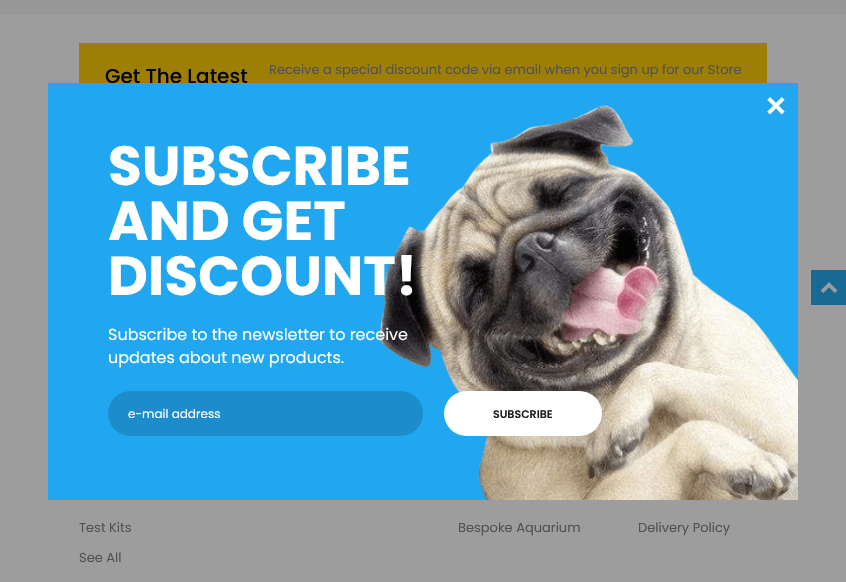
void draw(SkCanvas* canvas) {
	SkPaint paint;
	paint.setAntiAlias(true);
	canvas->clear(0xff979797);
	paint.setColor(0xff9d9d9d);
	canvas->drawRect(SkRect::MakeXYWH(0, 15, 846, 567), paint);
	paint.setColor(0xff9d7f05);
	canvas->drawRect(SkRect::MakeXYWH(79, 43, 688, 40), paint);
	SkFont f1(fontMgr->matchFamilyStyle("Poppins", SkFontStyle(500, SkFontStyle::kNormal_Width, SkFontStyle::kUpright_Slant)), 20);
	f1.setSubpixel(true);
	paint.setColor(0xff040404);
	canvas->drawString("Get The Latest", 105, 83, f1, paint);
	SkFont f2(fontMgr->matchFamilyStyle("Poppins", SkFontStyle::Normal()), 13);
	f2.setSubpixel(true);
	paint.setColor(0xff515151);
	canvas->drawString("Receive a special discount code via email when you sign up for our Store", 269, 74, f2, paint);
	canvas->drawString("Test Kits", 79, 532, f2, paint);
	canvas->drawString("See All", 79, 562, f2, paint);
	canvas->drawString("Bespoke Aquarium", 458, 532, f2, paint);
	canvas->drawString("Delivery Policy", 638, 532, f2, paint);
	paint.setColor(0xff186994);
	canvas->drawRect(SkRect::MakeXYWH(811, 270, 35, 35), paint);
	canvas->drawImageRect(SkImages::DeferredFromEncodedData(SkData::MakeFromFileName("img1.png")), SkRect::MakeXYWH(820, 282, 18, 11), SkSamplingOptions());
	paint.setColor(0xff21a7f0);
	canvas->drawRect(SkRect::MakeXYWH(48, 83, 750, 417), paint);
	canvas->drawImageRect(SkImages::DeferredFromEncodedData(SkData::MakeFromFileName("img2.png")), SkRect::MakeXYWH(380, 105, 418, 395), SkSamplingOptions());
	SkFont f3(fontMgr->matchFamilyStyle("Liberation Sans", SkFontStyle::Bold()), 34);
	f3.setSubpixel(true);
	paint.setColor(0xffffffff);
	canvas->drawString("×", 766, 117, f3, paint);
	SkFont f4(fontMgr->matchFamilyStyle("Poppins", SkFontStyle::Bold()), 55);
	f4.setSubpixel(true);
	canvas->drawString("SUBSCRIBE", 108, 185, f4, paint);
	canvas->drawString("AND GET", 108, 240, f4, paint);
	canvas->drawString("DISCOUNT!", 108, 295, f4, paint);
	SkFont f5(fontMgr->matchFamilyStyle("Poppins", SkFontStyle::Normal()), 16);
	f5.setSubpixel(true);
	canvas->drawString("Subscribe to the newsletter to receive", 108, 340, f5, paint);
	canvas->drawString("updates about new products.", 108, 363, f5, paint);
	paint.setColor(0xff1c8cca);
	canvas->drawRoundRect(SkRect::MakeXYWH(108, 391, 315, 45), 22.5, 22.5, paint);
	SkFont f6(fontMgr->matchFamilyStyle("Poppins", SkFontStyle::Normal()), 12);
	f6.setSubpixel(true);
	paint.setColor(0xffffffff);
	canvas->drawString("e-mail address", 128, 418, f6, paint);
	canvas->drawRoundRect(SkRect::MakeXYWH(444, 391, 158, 45), 22.5, 22.5, paint);
	SkFont f7(fontMgr->matchFamilyStyle("Poppins", SkFontStyle(600, SkFontStyle::kNormal_Width, SkFontStyle::kUpright_Slant)), 11);
	f7.setSubpixel(true);
	paint.setColor(0xff1f1f1f);
	canvas->drawString("SUBSCRIBE", 493, 418, f7, paint);
}
